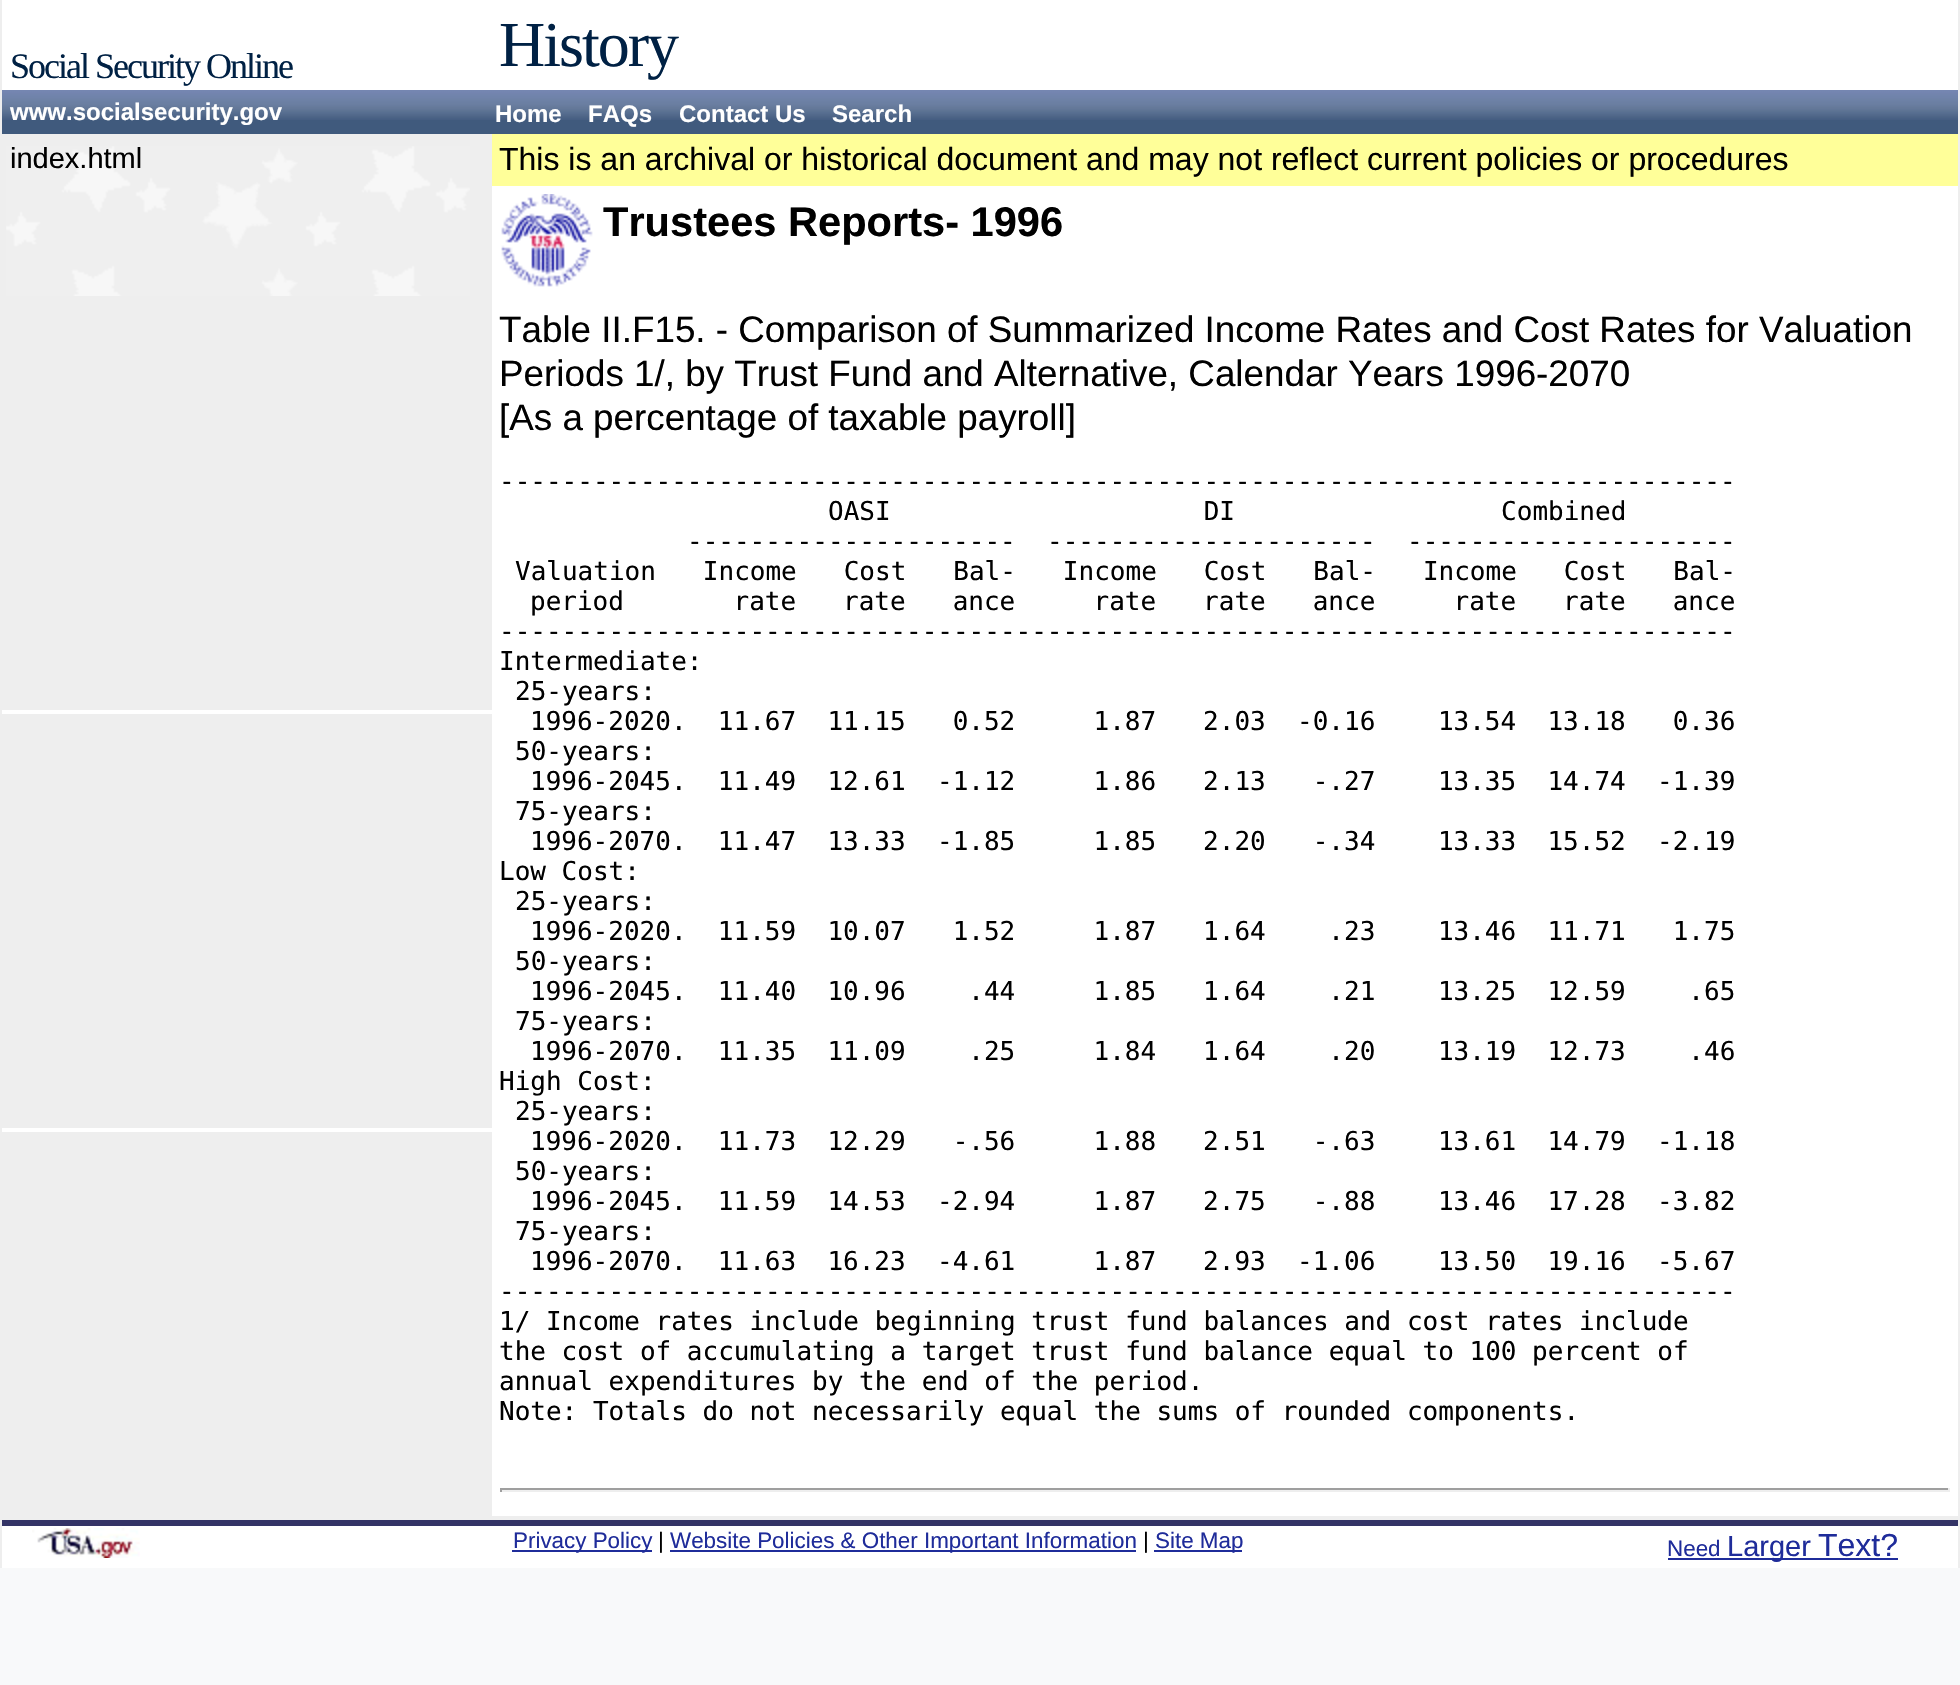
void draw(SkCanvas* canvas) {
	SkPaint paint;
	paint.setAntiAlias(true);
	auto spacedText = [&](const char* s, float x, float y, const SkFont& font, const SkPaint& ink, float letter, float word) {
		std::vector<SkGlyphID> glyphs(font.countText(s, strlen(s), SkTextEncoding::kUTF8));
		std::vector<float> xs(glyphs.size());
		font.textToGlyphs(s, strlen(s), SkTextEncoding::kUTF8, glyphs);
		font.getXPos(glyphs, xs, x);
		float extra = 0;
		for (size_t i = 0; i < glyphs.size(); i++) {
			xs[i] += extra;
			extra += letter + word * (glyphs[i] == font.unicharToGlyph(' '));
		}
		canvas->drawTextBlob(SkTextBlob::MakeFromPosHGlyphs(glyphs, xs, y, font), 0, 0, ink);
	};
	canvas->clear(0xfff8f9fa);
	paint.setColor(0xffffffff);
	canvas->drawRect(SkRect::MakeXYWH(2, 0, 1956, 1568), paint);
	paint.setColor(0xffeeeeee);
	canvas->drawRect(SkRect::MakeXYWH(1958, 0, 2, 1568), paint);
	canvas->drawRect(SkRect::MakeXYWH(0, 0, 2, 1568), paint);
	SkFont f1(fontMgr->matchFamilyStyle("Liberation Serif", SkFontStyle::Normal()), 36);
	f1.setSubpixel(true);
	paint.setColor(0xff002144);
	spacedText("Social Security Online", 10, 78, f1, paint, -2, 0);
	SkFont f2(fontMgr->matchFamilyStyle("Liberation Serif", SkFontStyle::Normal()), 64);
	f2.setSubpixel(true);
	spacedText("History", 499, 66, f2, paint, -2, 0);
	paint.setColor(0xff405a7d);
	canvas->drawRect(SkRect::MakeXYWH(2, 120, 1956, 14), paint);
	canvas->drawImageRect(SkImages::DeferredFromEncodedData(SkData::MakeFromFileName("img1.png")), SkRect::MakeXYWH(2, 90, 490, 30), SkSamplingOptions());
	SkFont f3(fontMgr->matchFamilyStyle("Liberation Sans", SkFontStyle::Bold()), 24);
	f3.setSubpixel(true);
	paint.setColor(0xffffffff);
	canvas->drawString("www.socialsecurity.gov", 10, 120, f3, paint);
	canvas->drawImageRect(SkImages::DeferredFromEncodedData(SkData::MakeFromFileName("img2.png")), SkRect::MakeXYWH(492, 90, 978, 30), SkSamplingOptions());
	canvas->drawString("Home", 495, 122, f3, paint);
	canvas->drawString("FAQs", 588, 122, f3, paint);
	canvas->drawString("Contact Us", 679, 122, f3, paint);
	canvas->drawString("Search", 832, 122, f3, paint);
	canvas->drawImageRect(SkImages::DeferredFromEncodedData(SkData::MakeFromFileName("img3.png")), SkRect::MakeXYWH(1470, 90, 488, 30), SkSamplingOptions());
	paint.setColor(0xffeeeeee);
	canvas->drawRect(SkRect::MakeXYWH(2, 134, 490, 576), paint);
	canvas->drawImageRect(SkImages::DeferredFromEncodedData(SkData::MakeFromFileName("img4.png")), SkRect::MakeXYWH(6, 146, 464, 150), SkSamplingOptions());
	SkFont f4(fontMgr->matchFamilyStyle("Liberation Sans", SkFontStyle::Normal()), 29);
	f4.setSubpixel(true);
	paint.setColor(0xff000000);
	canvas->drawString("index.html", 10, 168, f4, paint);
	paint.setColor(0xffffff99);
	canvas->drawRect(SkRect::MakeXYWH(492, 134, 1466, 52), paint);
	SkFont f5(fontMgr->matchFamilyStyle("Liberation Sans", SkFontStyle::Normal()), 32);
	f5.setSubpixel(true);
	paint.setColor(0xff000000);
	canvas->drawString("This is an archival or historical document and may not reflect current policies or procedures", 499, 170, f5, paint);
	canvas->drawImageRect(SkImages::DeferredFromEncodedData(SkData::MakeFromFileName("img5.png")), SkRect::MakeXYWH(501, 194, 92, 93), SkSamplingOptions());
	SkFont f6(fontMgr->matchFamilyStyle("Liberation Sans", SkFontStyle::Bold()), 41.6);
	f6.setSubpixel(true);
	canvas->drawString("Trustees Reports- 1996", 603, 236, f6, paint);
	paint.setColor(0xffeeeeee);
	canvas->drawRect(SkRect::MakeXYWH(2, 714, 490, 414), paint);
	canvas->drawRect(SkRect::MakeXYWH(492, 1516, 1466, 4), paint);
	SkFont f7(fontMgr->matchFamilyStyle("Liberation Sans", SkFontStyle::Normal()), 36.8);
	f7.setSubpixel(true);
	paint.setColor(0xff000000);
	canvas->drawString("Table II.F15. - Comparison of Summarized Income Rates and Cost Rates for Valuation", 499, 342, f7, paint);
	canvas->drawString("Periods 1/, by Trust Fund and Alternative, Calendar Years 1996-2070", 499, 386, f7, paint);
	canvas->drawString("[As a percentage of taxable payroll]", 499, 430, f7, paint);
	SkFont f8(fontMgr->matchFamilyStyle("DejaVu Sans Mono", SkFontStyle::Normal()), 26);
	f8.setSubpixel(true);
	canvas->drawString("-------------------------------------------------------------------------------", 499, 490, f8, paint);
	canvas->drawString("OASI                    DI                 Combined", 828, 520, f8, paint);
	canvas->drawString("---------------------  ---------------------  ---------------------", 687, 550, f8, paint);
	canvas->drawString("Valuation   Income   Cost   Bal-   Income   Cost   Bal-   Income   Cost   Bal-", 515, 580, f8, paint);
	canvas->drawString("period       rate   rate   ance     rate   rate   ance     rate   rate   ance", 530, 610, f8, paint);
	canvas->drawString("-------------------------------------------------------------------------------", 499, 640, f8, paint);
	canvas->drawString("Intermediate:", 499, 670, f8, paint);
	canvas->drawString("25-years:", 515, 700, f8, paint);
	canvas->drawString("1996-2020.  11.67  11.15   0.52     1.87   2.03  -0.16    13.54  13.18   0.36", 530, 730, f8, paint);
	canvas->drawString("50-years:", 515, 760, f8, paint);
	canvas->drawString("1996-2045.  11.49  12.61  -1.12     1.86   2.13   -.27    13.35  14.74  -1.39", 530, 790, f8, paint);
	canvas->drawString("75-years:", 515, 820, f8, paint);
	canvas->drawString("1996-2070.  11.47  13.33  -1.85     1.85   2.20   -.34    13.33  15.52  -2.19", 530, 850, f8, paint);
	canvas->drawString("Low Cost:", 499, 880, f8, paint);
	canvas->drawString("25-years:", 515, 910, f8, paint);
	canvas->drawString("1996-2020.  11.59  10.07   1.52     1.87   1.64    .23    13.46  11.71   1.75", 530, 940, f8, paint);
	canvas->drawString("50-years:", 515, 970, f8, paint);
	canvas->drawString("1996-2045.  11.40  10.96    .44     1.85   1.64    .21    13.25  12.59    .65", 530, 1000, f8, paint);
	canvas->drawString("75-years:", 515, 1030, f8, paint);
	canvas->drawString("1996-2070.  11.35  11.09    .25     1.84   1.64    .20    13.19  12.73    .46", 530, 1060, f8, paint);
	canvas->drawString("High Cost:", 499, 1090, f8, paint);
	canvas->drawString("25-years:", 515, 1120, f8, paint);
	canvas->drawString("1996-2020.  11.73  12.29   -.56     1.88   2.51   -.63    13.61  14.79  -1.18", 530, 1150, f8, paint);
	canvas->drawString("50-years:", 515, 1180, f8, paint);
	canvas->drawString("1996-2045.  11.59  14.53  -2.94     1.87   2.75   -.88    13.46  17.28  -3.82", 530, 1210, f8, paint);
	canvas->drawString("75-years:", 515, 1240, f8, paint);
	canvas->drawString("1996-2070.  11.63  16.23  -4.61     1.87   2.93  -1.06    13.50  19.16  -5.67", 530, 1270, f8, paint);
	canvas->drawString("-------------------------------------------------------------------------------", 499, 1300, f8, paint);
	canvas->drawString("1/ Income rates include beginning trust fund balances and cost rates include", 499, 1330, f8, paint);
	canvas->drawString("the cost of accumulating a target trust fund balance equal to 100 percent of", 499, 1360, f8, paint);
	canvas->drawString("annual expenditures by the end of the period.", 499, 1390, f8, paint);
	canvas->drawString("Note: Totals do not necessarily equal the sums of rounded components.", 499, 1420, f8, paint);
	paint.setColor(0xff9f9f9f);
	canvas->drawRect(SkRect::MakeXYWH(500, 1488, 1450, 2), paint);
	paint.setColor(0xffeeeeee);
	canvas->drawRect(SkRect::MakeXYWH(1948, 1488, 2, 4), paint);
	canvas->drawRect(SkRect::MakeXYWH(500, 1490, 1450, 2), paint);
	paint.setColor(0xff9f9f9f);
	canvas->drawRect(SkRect::MakeXYWH(500, 1488, 2, 4), paint);
	paint.setColor(0xffeeeeee);
	canvas->drawRect(SkRect::MakeXYWH(2, 1132, 490, 388), paint);
	paint.setColor(0xff333366);
	canvas->drawRect(SkRect::MakeXYWH(2, 1520, 1956, 6), paint);
	canvas->drawImageRect(SkImages::DeferredFromEncodedData(SkData::MakeFromFileName("img6.png")), SkRect::MakeXYWH(32, 1528, 108, 30), SkSamplingOptions());
	paint.setColor(0xff1f2c9a);
	canvas->drawRect(SkRect::MakeXYWH(512, 1550, 140, 2), paint);
	SkFont f9(fontMgr->matchFamilyStyle("Liberation Sans", SkFontStyle::Normal()), 22.4);
	f9.setSubpixel(true);
	canvas->drawString("Privacy Policy", 513, 1548, f9, paint);
	paint.setColor(0xff000000);
	canvas->drawString("|", 658, 1548, f9, paint);
	paint.setColor(0xff1f2c9a);
	canvas->drawRect(SkRect::MakeXYWH(670, 1550, 466, 2), paint);
	canvas->drawString("Website Policies & Other Important Information", 670, 1548, f9, paint);
	paint.setColor(0xff000000);
	canvas->drawString("|", 1143, 1548, f9, paint);
	paint.setColor(0xff1f2c9a);
	canvas->drawRect(SkRect::MakeXYWH(1154, 1550, 88, 2), paint);
	canvas->drawString("Site Map", 1155, 1548, f9, paint);
	canvas->drawString("Need", 1667, 1556, f9, paint);
	canvas->drawRect(SkRect::MakeXYWH(1668, 1558, 230, 2), paint);
	canvas->drawString("Larger", 1727, 1556, f4, paint);
	canvas->drawString("Text?", 1818, 1556, f5, paint);
}
